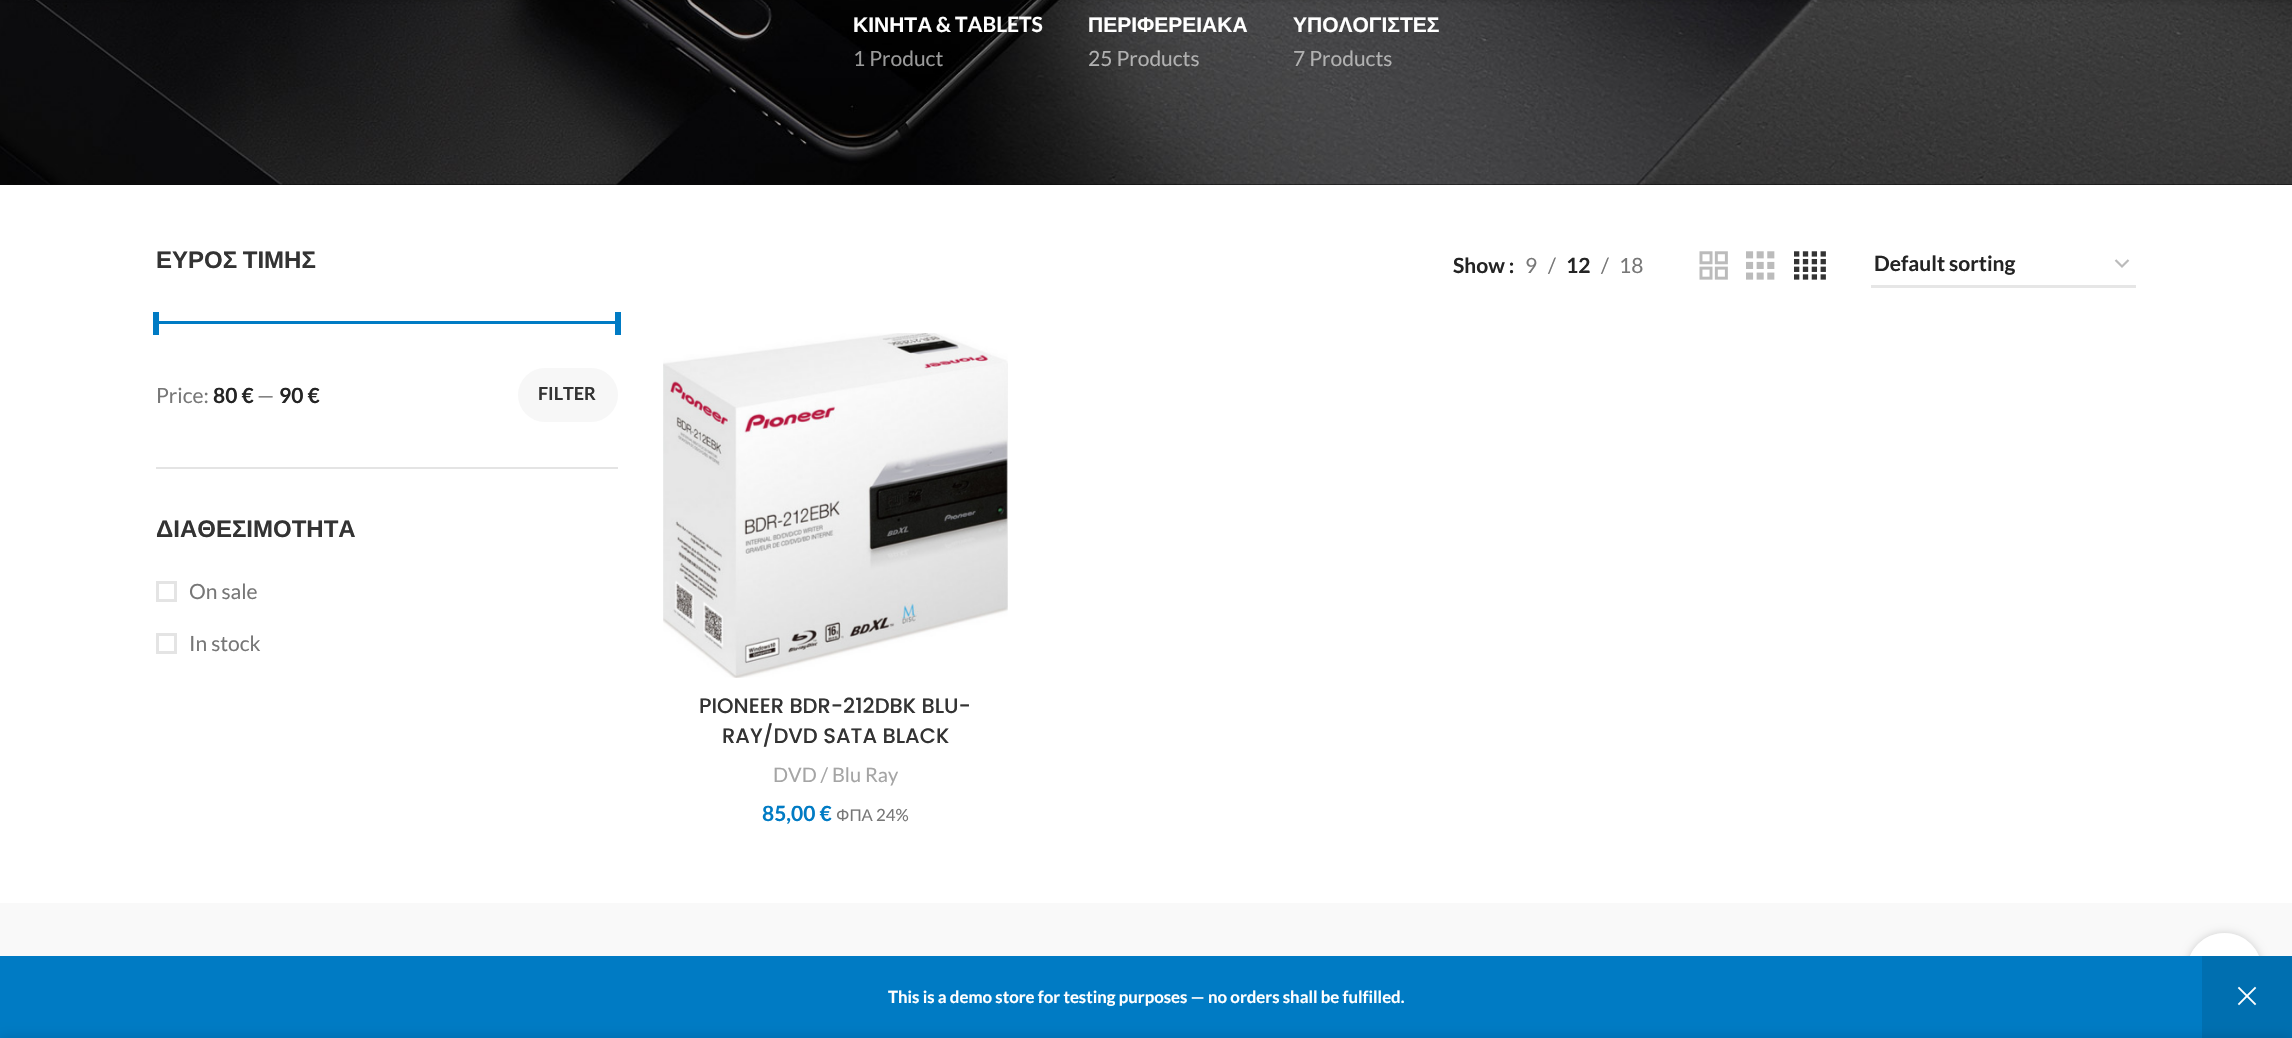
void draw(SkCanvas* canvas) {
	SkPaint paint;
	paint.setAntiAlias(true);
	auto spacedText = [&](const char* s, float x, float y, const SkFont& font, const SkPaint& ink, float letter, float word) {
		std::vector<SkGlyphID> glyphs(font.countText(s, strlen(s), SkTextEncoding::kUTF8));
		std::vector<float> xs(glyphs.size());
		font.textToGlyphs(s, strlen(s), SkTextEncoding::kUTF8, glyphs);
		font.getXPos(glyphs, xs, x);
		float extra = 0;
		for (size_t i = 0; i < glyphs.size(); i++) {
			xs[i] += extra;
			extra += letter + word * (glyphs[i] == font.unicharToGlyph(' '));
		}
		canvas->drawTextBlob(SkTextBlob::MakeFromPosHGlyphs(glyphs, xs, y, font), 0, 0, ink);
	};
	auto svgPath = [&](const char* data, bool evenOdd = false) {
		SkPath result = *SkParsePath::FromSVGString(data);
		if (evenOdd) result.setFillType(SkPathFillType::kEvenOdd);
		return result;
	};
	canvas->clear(0xffffffff);
	paint.setColor(0xff0a0a0a);
	canvas->drawRect(SkRect::MakeXYWH(0, 184, 2292, 1), paint);
	canvas->drawImageRect(SkImages::DeferredFromEncodedData(SkData::MakeFromFileName("img1.png")), SkRect::MakeXYWH(0, 0, 2292, 185), SkSamplingOptions());
	paint.setColor(0x1a000000);
	paint.setMaskFilter(SkMaskFilter::MakeBlur(kNormal_SkBlurStyle, 2));
	canvas->drawRect(SkRect::MakeXYWH(0, -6, 2292, 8), paint);
	paint.setMaskFilter(nullptr);
	SkFont f1(fontMgr->matchFamilyStyle("Liberation Sans", SkFontStyle::Bold()), 21);
	f1.setSubpixel(true);
	paint.setColor(0xffffffff);
	canvas->drawString("ΚΙΝΗΤΑ", 853, 32, f1, paint);
	SkFont f2(fontMgr->matchFamilyStyle("Lato", SkFontStyle::Bold()), 21);
	f2.setSubpixel(true);
	canvas->drawString("& TABLETS", 936, 32, f2, paint);
	SkFont f3(fontMgr->matchFamilyStyle("Lato", SkFontStyle::Normal()), 21);
	f3.setSubpixel(true);
	paint.setColor(0xff9a9a9a);
	canvas->drawString("1 Product", 853, 66, f3, paint);
	paint.setColor(0xffffffff);
	canvas->drawString("ΠΕΡΙΦΕΡΕΙΑΚΑ", 1088, 32, f1, paint);
	paint.setColor(0xffb1b1b1);
	canvas->drawString("25 Products", 1088, 66, f3, paint);
	paint.setColor(0xffffffff);
	canvas->drawString("ΥΠΟΛΟΓΙΣΤΕΣ", 1293, 32, f1, paint);
	paint.setColor(0xffb1b1b1);
	canvas->drawString("7 Products", 1293, 66, f3, paint);
	paint.setColor(0xffe4e4e4);
	canvas->drawRect(SkRect::MakeXYWH(156, 467, 462, 2), paint);
	SkFont f4(fontMgr->matchFamilyStyle("Liberation Sans", SkFontStyle::Bold()), 24);
	f4.setSubpixel(true);
	paint.setColor(0xff333333);
	spacedText("ΕΥΡΟΣ ΤΙΜΗΣ", 156, 268, f4, paint, 0, -1);
	paint.setColor(0xff007bc4);
	canvas->drawRect(SkRect::MakeXYWH(156, 321, 462, 3), paint);
	canvas->drawRect(SkRect::MakeXYWH(153, 312, 6, 23), paint);
	canvas->drawRect(SkRect::MakeXYWH(615, 312, 6, 23), paint);
	paint.setColor(0xff777777);
	canvas->drawString("Price:", 156, 403, f3, paint);
	paint.setColor(0xff242424);
	canvas->drawString("80 €", 213, 403, f2, paint);
	paint.setColor(0xff777777);
	canvas->drawString("—", 257, 403, f3, paint);
	paint.setColor(0xff242424);
	canvas->drawString("90 €", 279, 403, f2, paint);
	paint.setColor(0xfff7f7f7);
	canvas->drawRoundRect(SkRect::MakeXYWH(518, 368, 100, 54), 27, 27, paint);
	SkFont f5(fontMgr->matchFamilyStyle("Lato", SkFontStyle::Bold()), 18);
	f5.setSubpixel(true);
	paint.setColor(0xff333333);
	canvas->drawString("FILTER", 538, 400, f5, paint);
	canvas->drawString("ΔΙΑΘΕΣΙΜΟΤΗΤΑ", 156, 537, f4, paint);
	paint.setStroke(true);
	paint.setStrokeWidth(3);
	paint.setColor(0xffe4e4e4);
	canvas->drawRect(SkRect::MakeXYWH(157.5, 582.5, 18, 18), paint);
	paint.setStroke(false);
	paint.setColor(0xff777777);
	canvas->drawString("On sale", 189, 599, f3, paint);
	paint.setStroke(true);
	paint.setColor(0xffe4e4e4);
	canvas->drawRect(SkRect::MakeXYWH(157.5, 634.5, 18, 18), paint);
	paint.setStroke(false);
	paint.setColor(0xff777777);
	canvas->drawString("In stock", 189, 651, f3, paint);
	paint.setColor(0xff242424);
	canvas->drawString("Show :", 1453, 273, f2, paint);
	paint.setColor(0xff777777);
	canvas->drawString("9", 1525, 273, f3, paint);
	canvas->drawString("/", 1548, 273, f3, paint);
	paint.setColor(0xff242424);
	canvas->drawString("12", 1566, 273, f2, paint);
	paint.setColor(0xff777777);
	canvas->drawString("/", 1601, 273, f3, paint);
	canvas->drawString("18", 1619, 273, f3, paint);
	canvas->drawImageRect(SkImages::DeferredFromEncodedData(SkData::MakeFromFileName("img2.png")), SkRect::MakeXYWH(1699, 251, 29, 29), SkSamplingOptions());
	canvas->drawImageRect(SkImages::DeferredFromEncodedData(SkData::MakeFromFileName("img3.png")), SkRect::MakeXYWH(1746, 251, 29, 29), SkSamplingOptions());
	canvas->drawImageRect(SkImages::DeferredFromEncodedData(SkData::MakeFromFileName("img4.png")), SkRect::MakeXYWH(1794, 251, 32, 29), SkSamplingOptions());
	paint.setStroke(true);
	paint.setStrokeWidth(2.2);
	paint.setColor(0xffbbbbbb);
	canvas->drawPath(svgPath("M2115.5 260L2122 266.5L2128.5 260"), paint);
	paint.setStroke(false);
	paint.setColor(0xffe6e6e6);
	canvas->drawRect(SkRect::MakeXYWH(1871, 285, 265, 3), paint);
	paint.setColor(0xff242424);
	canvas->drawString("Default sorting", 1874, 271, f2, paint);
	canvas->drawImageRect(SkImages::DeferredFromEncodedData(SkData::MakeFromFileName("img5.png")), SkRect::MakeXYWH(663, 333, 345, 345), SkSamplingOptions());
	SkFont f6(fontMgr->matchFamilyStyle("Poppins", SkFontStyle(500, SkFontStyle::kNormal_Width, SkFontStyle::kUpright_Slant)), 21);
	f6.setSubpixel(true);
	paint.setColor(0xff333333);
	canvas->drawString("PIONEER BDR-212DBK BLU-", 699, 713, f6, paint);
	canvas->drawString("RAY/DVD SATA BLACK", 722, 743, f6, paint);
	SkFont f7(fontMgr->matchFamilyStyle("Lato", SkFontStyle::Normal()), 20);
	f7.setSubpixel(true);
	paint.setColor(0xffa5a5a5);
	canvas->drawString("DVD / Blu Ray", 773, 782, f7, paint);
	paint.setColor(0xff007bc4);
	canvas->drawString("85,00 €", 762, 821, f2, paint);
	SkFont f8(fontMgr->matchFamilyStyle("Liberation Sans", SkFontStyle::Normal()), 16.8);
	f8.setSubpixel(true);
	paint.setColor(0xff777777);
	canvas->drawString("ΦΠΑ", 836, 821, f8, paint);
	SkFont f9(fontMgr->matchFamilyStyle("Lato", SkFontStyle::Normal()), 16.8);
	f9.setSubpixel(true);
	canvas->drawString("24%", 876, 821, f9, paint);
	paint.setColor(0xfff9f9f9);
	canvas->drawRect(SkRect::MakeXYWH(0, 903, 2292, 53), paint);
	canvas->save();
	canvas->clipPath(svgPath("M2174 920H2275V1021H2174ZM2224.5 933C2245 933 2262 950 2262 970.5C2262 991 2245 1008 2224.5 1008C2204 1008 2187 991 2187 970.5C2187 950 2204 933 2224.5 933Z", true), true);
	paint.setColor(0x2b000000);
	paint.setMaskFilter(SkMaskFilter::MakeBlur(kNormal_SkBlurStyle, 4));
	canvas->drawRoundRect(SkRect::MakeXYWH(2187, 933, 75, 75), 37.5, 37.5, paint);
	paint.setMaskFilter(nullptr);
	canvas->restore();
	paint.setColor(0xe6ffffff);
	canvas->drawCircle(2224.5, 970.5, 37.5, paint);
	paint.setColor(0xff007bc4);
	canvas->drawRect(SkRect::MakeXYWH(0, 956, 2202, 82), paint);
	SkFont f10(fontMgr->matchFamilyStyle("Lato", SkFontStyle::Bold()), 16.8);
	f10.setSubpixel(true);
	paint.setColor(0xffffffff);
	canvas->drawString("This is a demo store for testing purposes — no orders shall be fulfilled.", 888, 1003, f10, paint);
	paint.setColor(0xff006fb0);
	canvas->drawRect(SkRect::MakeXYWH(2202, 956, 90, 82), paint);
	canvas->drawImageRect(SkImages::DeferredFromEncodedData(SkData::MakeFromFileName("img6.png")), SkRect::MakeXYWH(2237, 986, 20, 20), SkSamplingOptions());
	paint.setColor(0x24000000);
	paint.setMaskFilter(SkMaskFilter::MakeBlur(kNormal_SkBlurStyle, 7));
	canvas->drawRect(SkRect::MakeXYWH(0, 1038, 2292, 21), paint);
	paint.setMaskFilter(nullptr);
}
